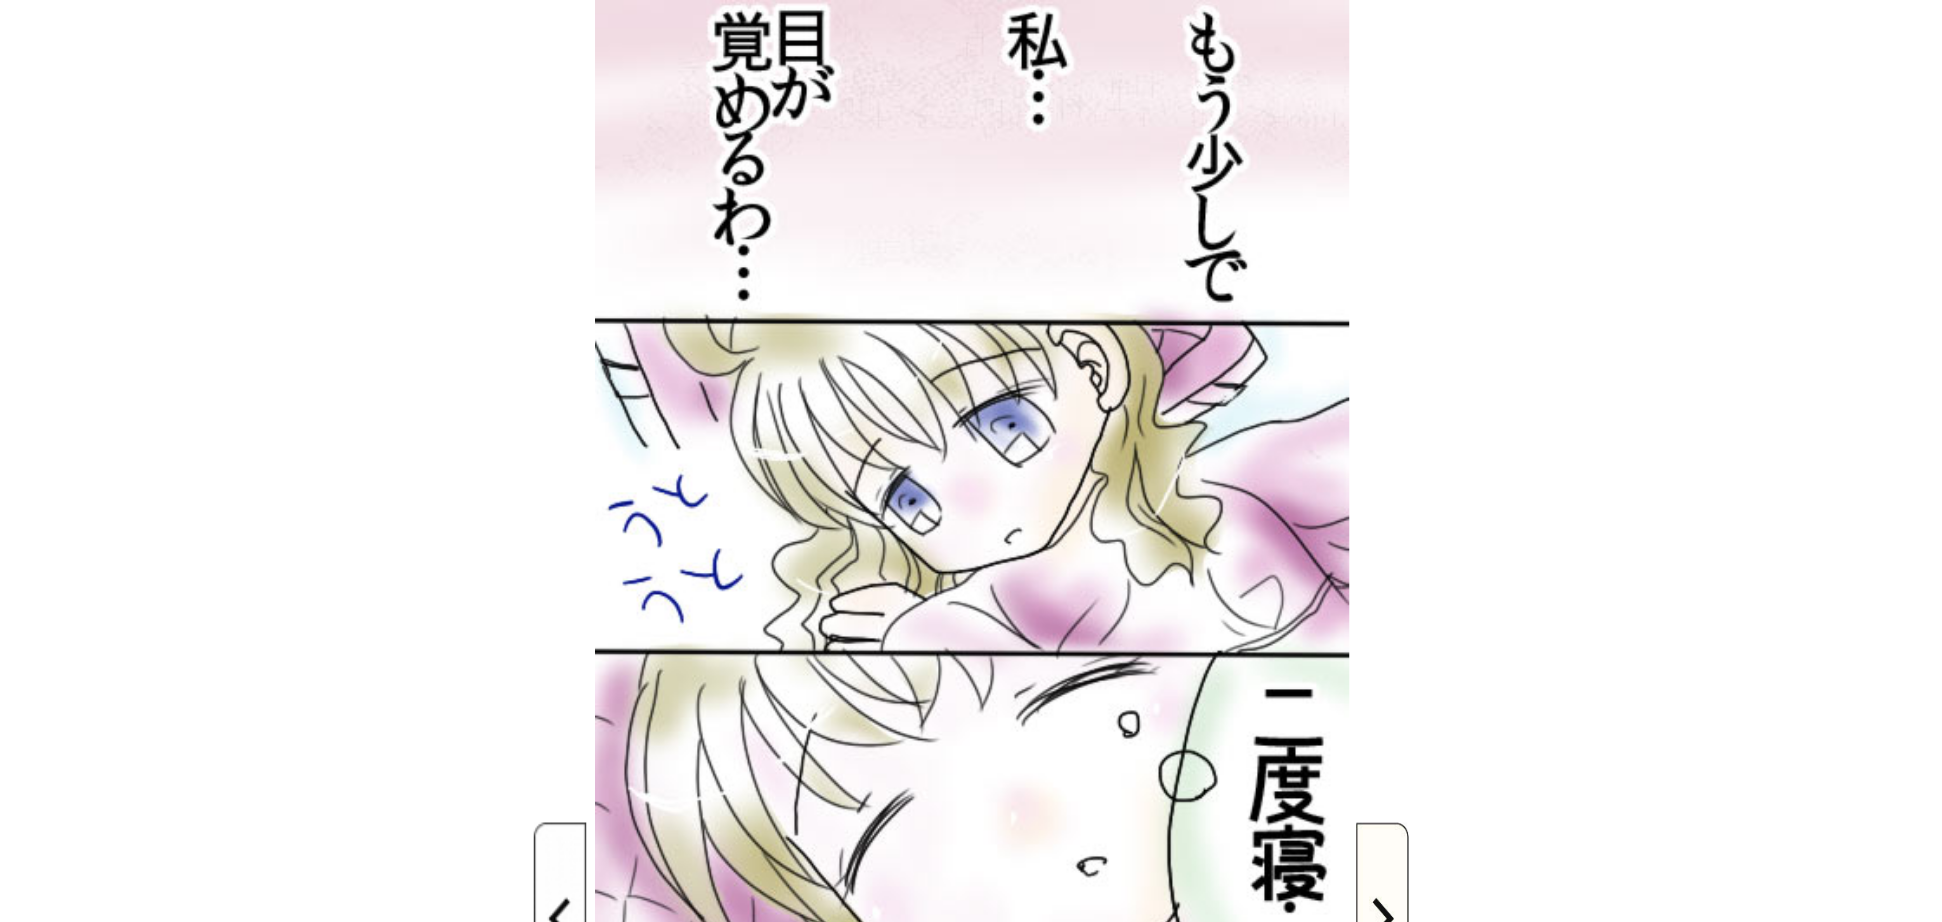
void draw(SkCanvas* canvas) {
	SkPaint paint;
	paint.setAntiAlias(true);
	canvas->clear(0xffffffff);
	canvas->drawImageRect(SkImages::DeferredFromEncodedData(SkData::MakeFromFileName("img1.png")), SkRect::MakeXYWH(533, 822, 54, 100), SkSamplingOptions());
	canvas->drawImageRect(SkImages::DeferredFromEncodedData(SkData::MakeFromFileName("img2.png")), SkRect::MakeXYWH(595, 0, 755, 922), SkSamplingOptions());
	canvas->drawImageRect(SkImages::DeferredFromEncodedData(SkData::MakeFromFileName("img3.png")), SkRect::MakeXYWH(1356, 822, 53, 100), SkSamplingOptions());
}
